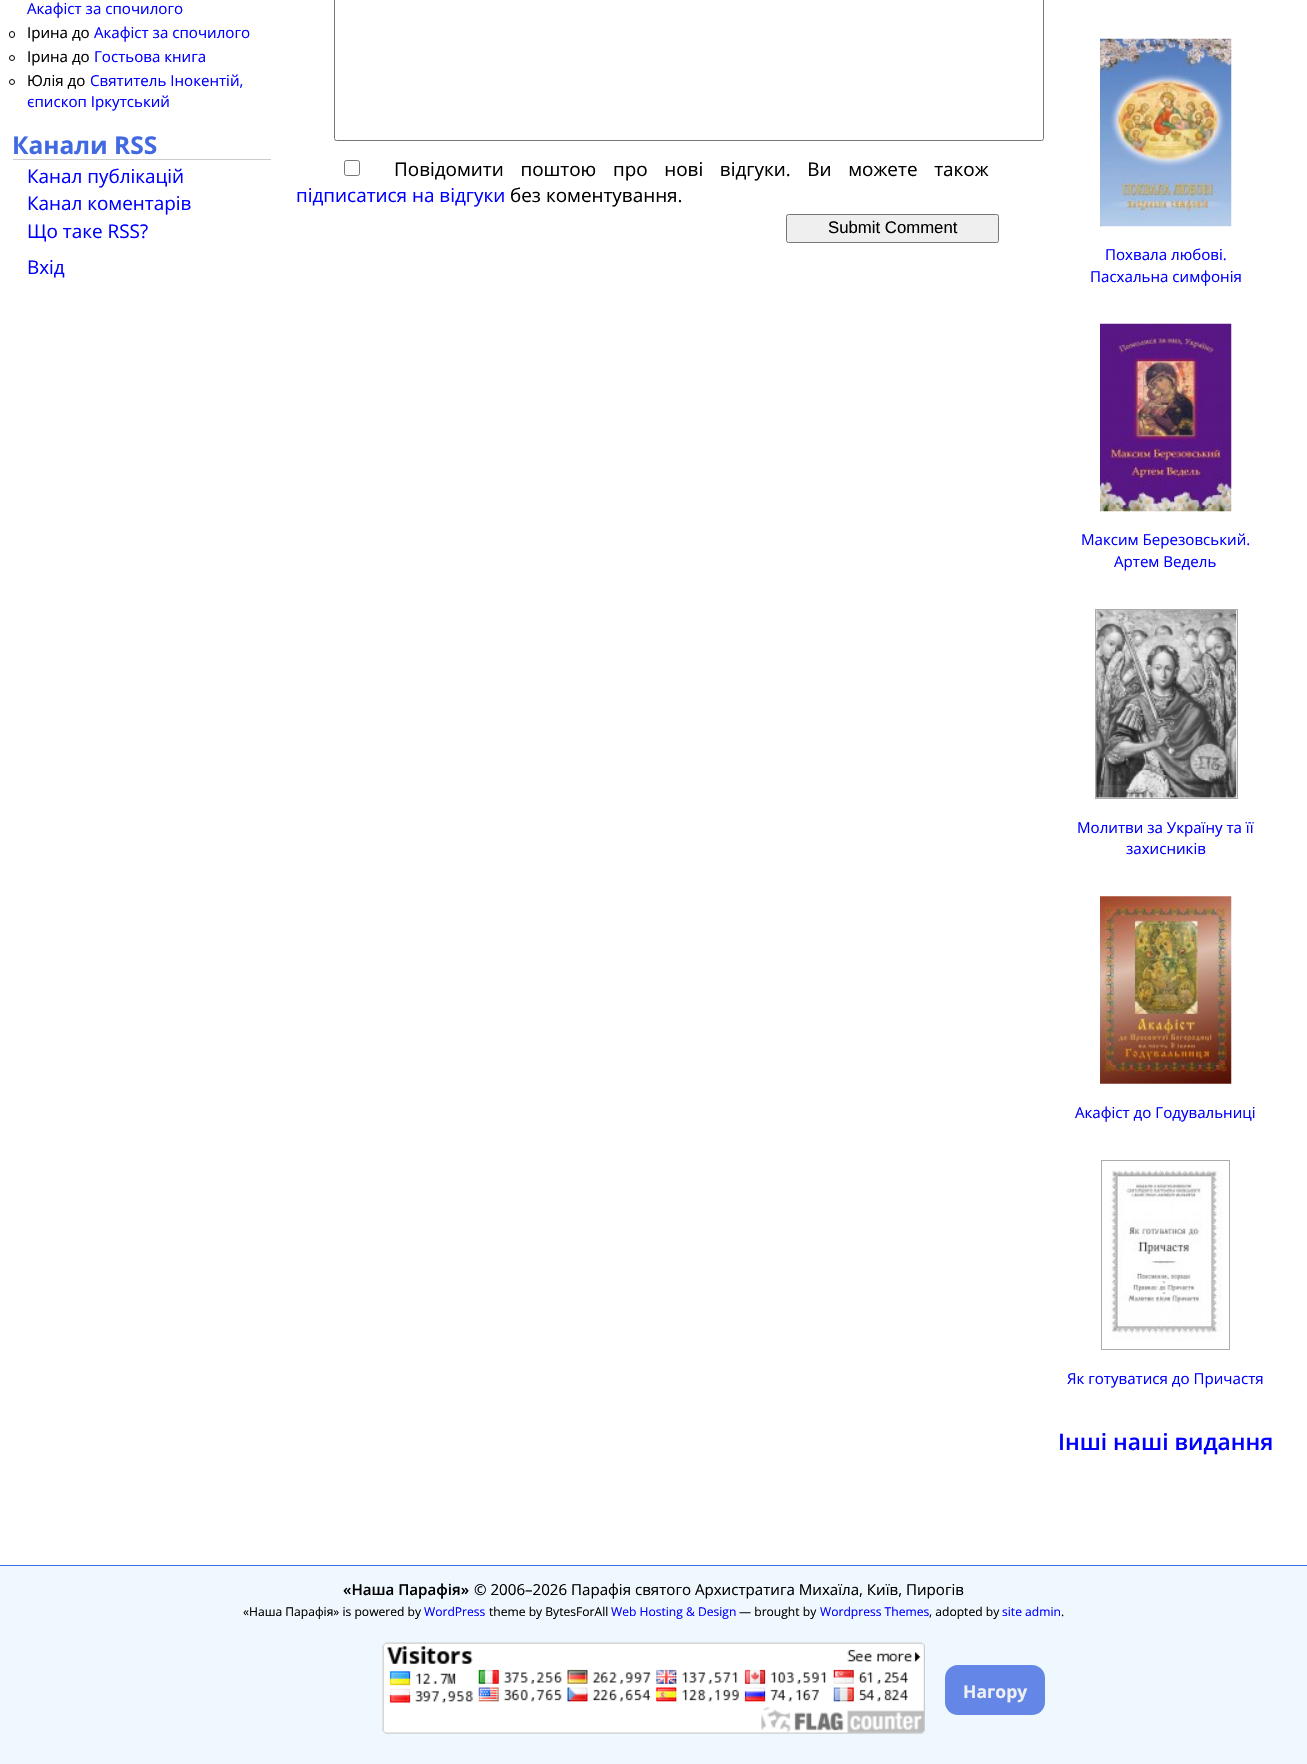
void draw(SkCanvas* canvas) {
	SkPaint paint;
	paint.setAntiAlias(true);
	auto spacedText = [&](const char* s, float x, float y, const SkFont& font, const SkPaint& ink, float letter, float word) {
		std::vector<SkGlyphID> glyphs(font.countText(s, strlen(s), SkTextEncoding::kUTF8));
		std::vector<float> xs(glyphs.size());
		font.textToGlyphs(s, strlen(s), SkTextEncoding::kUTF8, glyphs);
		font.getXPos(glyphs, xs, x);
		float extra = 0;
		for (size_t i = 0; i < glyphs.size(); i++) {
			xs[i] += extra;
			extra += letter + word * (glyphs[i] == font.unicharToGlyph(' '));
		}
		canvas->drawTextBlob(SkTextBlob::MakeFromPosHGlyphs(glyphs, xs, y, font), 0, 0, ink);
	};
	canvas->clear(0xffffffff);
	SkFont f1(fontMgr->matchFamilyStyle("Open Sans", SkFontStyle::Normal()), 15.1);
	f1.setSubpixel(true);
	paint.setColor(0xff0000ff);
	canvas->drawString("Акафіст за спочилого", 27, 14, f1, paint);
	paint.setStroke(true);
	paint.setStrokeWidth(1);
	paint.setColor(0xff000000);
	canvas->drawRoundRect(SkRect::MakeXYWH(9.5, 31.5, 5, 6), 2.5, 2.5, paint);
	paint.setStroke(false);
	canvas->drawString("Ірина до", 27, 38, f1, paint);
	paint.setColor(0xff0000ff);
	canvas->drawString("Акафіст за спочилого", 94, 38, f1, paint);
	paint.setStroke(true);
	paint.setColor(0xff000000);
	canvas->drawCircle(12, 58, 2.5, paint);
	paint.setStroke(false);
	canvas->drawString("Ірина до", 27, 62, f1, paint);
	paint.setColor(0xff0000ff);
	canvas->drawString("Гостьова книга", 94, 62, f1, paint);
	paint.setStroke(true);
	paint.setColor(0xff000000);
	canvas->drawCircle(12, 82, 2.5, paint);
	paint.setStroke(false);
	canvas->drawString("Юлія до", 27, 86, f1, paint);
	paint.setColor(0xff0000ff);
	canvas->drawString("Святитель Інокентій,", 90, 86, f1, paint);
	canvas->drawString("єпископ Іркутський", 27, 107, f1, paint);
	paint.setColor(0xffcccccc);
	canvas->drawRect(SkRect::MakeXYWH(13, 159, 258, 1), paint);
	SkFont f2(fontMgr->matchFamilyStyle("Open Sans", SkFontStyle::Bold()), 24.5);
	f2.setSubpixel(true);
	paint.setColor(0xff4169e1);
	canvas->drawString("Канали RSS", 12, 154, f2, paint);
	SkFont f3(fontMgr->matchFamilyStyle("Open Sans", SkFontStyle::Normal()), 18.9);
	f3.setSubpixel(true);
	paint.setColor(0xff0000ff);
	canvas->drawString("Канал публікацій", 27, 183, f3, paint);
	canvas->drawString("Канал коментарів", 27, 210, f3, paint);
	canvas->drawString("Що таке RSS?", 27, 238, f3, paint);
	canvas->drawString("Вхід", 27, 274, f3, paint);
	paint.setStroke(true);
	paint.setColor(0xff767676);
	canvas->drawRoundRect(SkRect::MakeXYWH(334.5, -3.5, 709, 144), 2, 2, paint);
	canvas->drawRoundRect(SkRect::MakeXYWH(344.5, 160.5, 15, 15), 2, 2, paint);
	paint.setStroke(false);
	paint.setColor(0xff000000);
	spacedText("Повідомити поштою про нові відгуки. Ви можете також", 394, 176, f3, paint, 0, 11.75);
	paint.setColor(0xff0000ff);
	canvas->drawString("підписатися на відгуки", 296, 202, f3, paint);
	paint.setColor(0xff000000);
	canvas->drawString("без коментування.", 510, 202, f3, paint);
	paint.setColor(0xffefefef);
	canvas->drawRoundRect(SkRect::MakeXYWH(786.5, 214.5, 212, 28), 2, 2, paint);
	paint.setStroke(true);
	paint.setColor(0xff767676);
	canvas->drawRoundRect(SkRect::MakeXYWH(786.5, 214.5, 212, 28), 2, 2, paint);
	SkFont f4(fontMgr->matchFamilyStyle("Liberation Sans", SkFontStyle::Normal()), 16.75);
	f4.setSubpixel(true);
	paint.setStroke(false);
	paint.setColor(0xff000000);
	canvas->drawString("Submit Comment", 828, 233, f4, paint);
	canvas->drawImageRect(SkImages::DeferredFromEncodedData(SkData::MakeFromFileName("img1.png")), SkRect::MakeXYWH(1100, 38, 132, 189), SkSamplingOptions());
	paint.setColor(0xff0000ff);
	canvas->drawString("Похвала любові.", 1105, 260, f1, paint);
	canvas->drawString("Пасхальна симфонія", 1090, 282, f1, paint);
	canvas->drawImageRect(SkImages::DeferredFromEncodedData(SkData::MakeFromFileName("img2.png")), SkRect::MakeXYWH(1100, 323, 132, 189), SkSamplingOptions());
	canvas->drawString("Максим Березовський.", 1081, 545, f1, paint);
	canvas->drawString("Артем Ведель", 1114, 567, f1, paint);
	paint.setStroke(true);
	paint.setColor(0xffababab);
	canvas->drawRect(SkRect::MakeXYWH(1095.5, 609.5, 142, 189), paint);
	canvas->drawImageRect(SkImages::DeferredFromEncodedData(SkData::MakeFromFileName("img3.png")), SkRect::MakeXYWH(1096, 610, 141, 188), SkSamplingOptions());
	paint.setStroke(false);
	paint.setColor(0xff0000ff);
	canvas->drawString("Молитви за Україну та її", 1077, 833, f1, paint);
	canvas->drawString("захисників", 1126, 854, f1, paint);
	canvas->drawImageRect(SkImages::DeferredFromEncodedData(SkData::MakeFromFileName("img4.png")), SkRect::MakeXYWH(1100, 896, 132, 188), SkSamplingOptions());
	canvas->drawString("Акафіст до Годувальниці", 1075, 1118, f1, paint);
	paint.setStroke(true);
	paint.setColor(0xffababab);
	canvas->drawRect(SkRect::MakeXYWH(1101.5, 1160.5, 128, 189), paint);
	canvas->drawImageRect(SkImages::DeferredFromEncodedData(SkData::MakeFromFileName("img5.png")), SkRect::MakeXYWH(1110, 1170, 113, 171), SkSamplingOptions());
	paint.setStroke(false);
	paint.setColor(0xff0000ff);
	canvas->drawString("Як готуватися до Причастя", 1067, 1384, f1, paint);
	SkFont f5(fontMgr->matchFamilyStyle("Open Sans", SkFontStyle(600, SkFontStyle::kNormal_Width, SkFontStyle::kUpright_Slant)), 22.75);
	f5.setSubpixel(true);
	canvas->drawString("Інші наші видання", 1058, 1450, f5, paint);
	paint.setColor(0xfff0f8ff);
	canvas->drawRect(SkRect::MakeXYWH(0, 1566, 1307, 198), paint);
	paint.setColor(0xff4169e1);
	canvas->drawRect(SkRect::MakeXYWH(0, 1565, 1307, 1), paint);
	SkFont f6(fontMgr->matchFamilyStyle("Open Sans", SkFontStyle(600, SkFontStyle::kNormal_Width, SkFontStyle::kUpright_Slant)), 15.1);
	f6.setSubpixel(true);
	paint.setColor(0xff000000);
	canvas->drawString("«Наша Парафія»", 343, 1595, f6, paint);
	canvas->drawString("© 2006–2026 Парафія святого Архистратига Михаїла, Київ, Пирогів", 474, 1595, f1, paint);
	SkFont f7(fontMgr->matchFamilyStyle("Open Sans", SkFontStyle::Normal()), 12.1);
	f7.setSubpixel(true);
	canvas->drawString("«Наша Парафія» is powered by", 243, 1616, f7, paint);
	paint.setColor(0xff0000ff);
	canvas->drawString("WordPress", 424, 1616, f7, paint);
	paint.setColor(0xff000000);
	canvas->drawString("theme by BytesForAll", 489, 1616, f7, paint);
	paint.setColor(0xff0000ff);
	canvas->drawString("Web Hosting & Design", 611, 1616, f7, paint);
	paint.setColor(0xff000000);
	canvas->drawString("— brought by", 739, 1616, f7, paint);
	paint.setColor(0xff0000ff);
	canvas->drawString("Wordpress Themes", 820, 1616, f7, paint);
	paint.setColor(0xff000000);
	canvas->drawString(", adopted by", 929, 1616, f7, paint);
	paint.setColor(0xff0000ff);
	canvas->drawString("site admin", 1002, 1616, f7, paint);
	paint.setColor(0xff000000);
	canvas->drawString(".", 1061, 1616, f7, paint);
	canvas->drawImageRect(SkImages::DeferredFromEncodedData(SkData::MakeFromFileName("img6.png")), SkRect::MakeXYWH(382, 1642, 543, 92), SkSamplingOptions());
	paint.setColor(0xff6486e7);
	canvas->drawRoundRect(SkRect::MakeXYWH(945, 1665, 100, 50), 13, 13, paint);
	SkFont f8(fontMgr->matchFamilyStyle("Open Sans", SkFontStyle::Bold()), 17.5);
	f8.setSubpixel(true);
	paint.setColor(0xffeef0f1);
	canvas->drawString("Нагору", 963, 1698, f8, paint);
}
